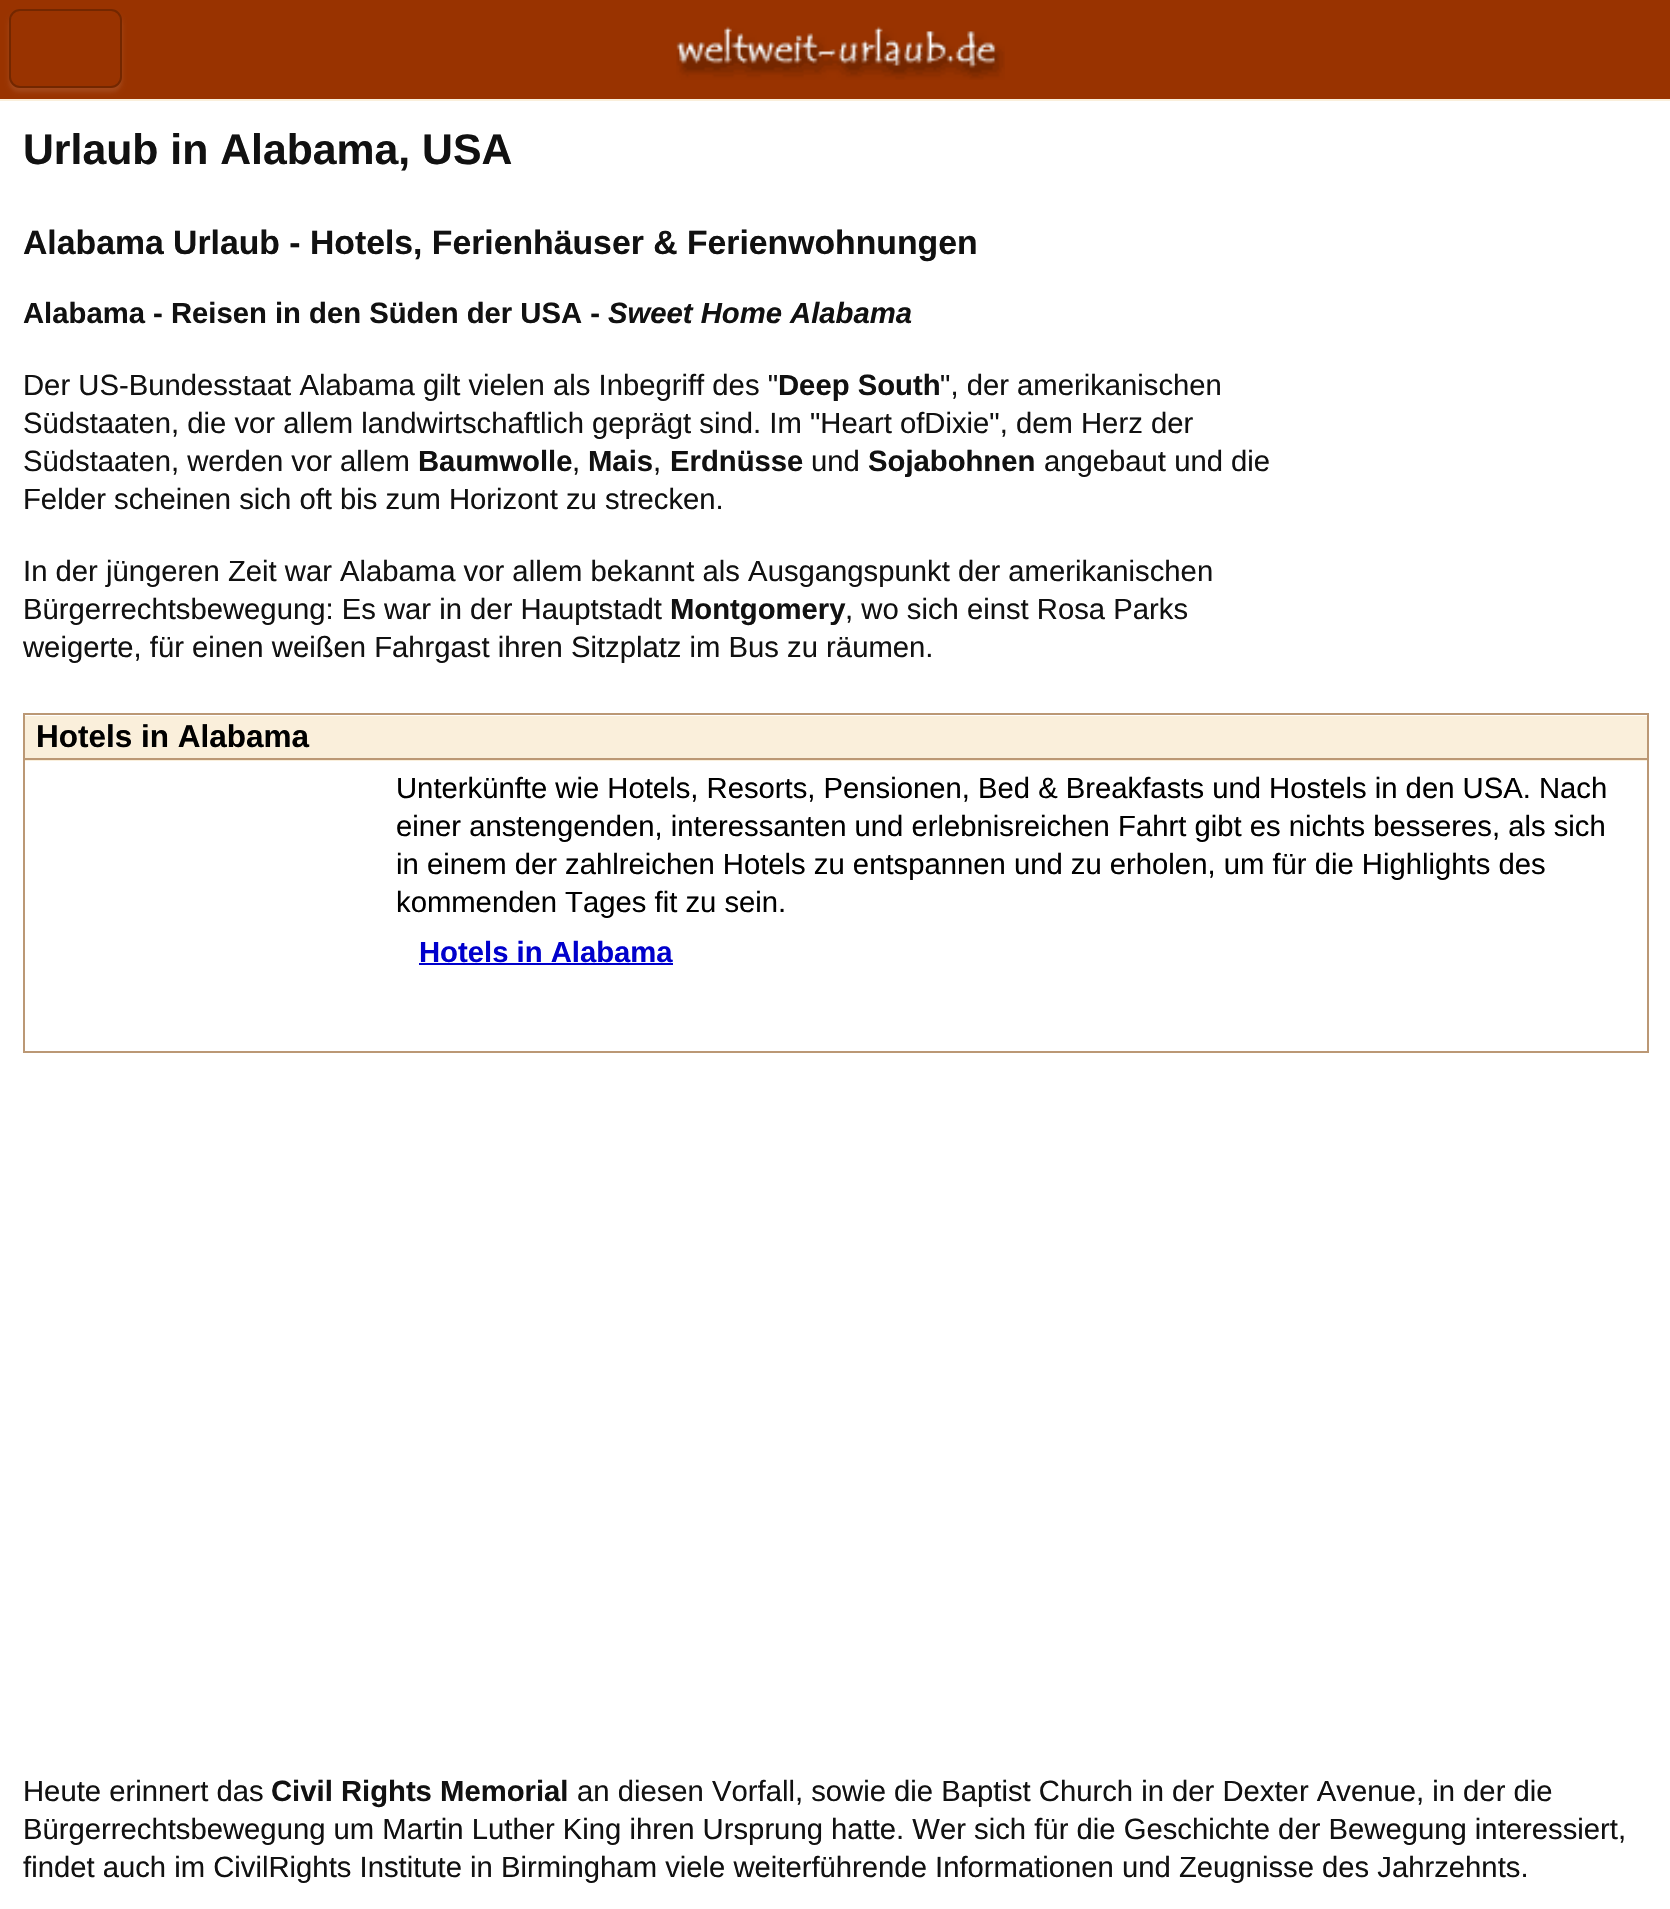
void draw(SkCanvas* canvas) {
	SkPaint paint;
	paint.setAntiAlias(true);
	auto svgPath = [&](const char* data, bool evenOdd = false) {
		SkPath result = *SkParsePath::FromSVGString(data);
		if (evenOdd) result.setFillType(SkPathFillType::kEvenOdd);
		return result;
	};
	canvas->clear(0xfffaefdb);
	paint.setColor(0xff993300);
	canvas->drawRect(SkRect::MakeXYWH(0, 0, 1670, 99), paint);
	canvas->save();
	canvas->clipPath(svgPath("M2 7H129V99H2ZM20 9H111C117 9 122 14 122 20V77C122 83 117 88 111 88H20C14 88 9 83 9 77V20C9 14 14 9 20 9Z", true), true);
	paint.setColor(0x1affffff);
	paint.setMaskFilter(SkMaskFilter::MakeBlur(kNormal_SkBlurStyle, 2));
	canvas->drawRoundRect(SkRect::MakeXYWH(9, 14, 113, 78), 11, 11, paint);
	paint.setMaskFilter(nullptr);
	canvas->restore();
	paint.setStroke(true);
	paint.setStrokeWidth(2);
	paint.setColor(0x40000000);
	canvas->drawRoundRect(SkRect::MakeXYWH(10, 10, 111, 77), 10, 10, paint);
	canvas->drawImageRect(SkImages::DeferredFromEncodedData(SkData::MakeFromFileName("img1.png")), SkRect::MakeXYWH(676, 26, 329, 54), SkSamplingOptions());
	paint.setStroke(false);
	paint.setColor(0xffffffff);
	canvas->drawRect(SkRect::MakeXYWH(0, 101, 1670, 1808), paint);
	SkFont f1(fontMgr->matchFamilyStyle("Liberation Sans", SkFontStyle::Bold()), 42.75);
	f1.setSubpixel(true);
	paint.setColor(0xff111111);
	canvas->drawString("Urlaub in Alabama, USA", 23, 164, f1, paint);
	SkFont f2(fontMgr->matchFamilyStyle("Liberation Sans", SkFontStyle::Bold()), 33.75);
	f2.setSubpixel(true);
	canvas->drawString("Alabama Urlaub - Hotels, Ferienhäuser & Ferienwohnungen", 23, 254, f2, paint);
	SkFont f3(fontMgr->matchFamilyStyle("Liberation Sans", SkFontStyle::Bold()), 29.25);
	f3.setSubpixel(true);
	canvas->drawString("Alabama - Reisen in den Süden der USA -", 23, 323, f3, paint);
	SkFont f4(fontMgr->matchFamilyStyle("Liberation Sans", SkFontStyle::BoldItalic()), 29.25);
	f4.setSubpixel(true);
	canvas->drawString("Sweet Home Alabama", 608, 323, f4, paint);
	SkFont f5(fontMgr->matchFamilyStyle("Liberation Sans", SkFontStyle::Normal()), 29.25);
	f5.setSubpixel(true);
	canvas->drawString("Der US-Bundesstaat Alabama gilt vielen als Inbegriff des \"", 23, 395, f5, paint);
	canvas->drawString("Deep South", 778, 395, f3, paint);
	canvas->drawString("\", der amerikanischen", 940, 395, f5, paint);
	canvas->drawString("Südstaaten, die vor allem landwirtschaftlich geprägt sind. Im \"Heart ofDixie\", dem Herz der", 23, 433, f5, paint);
	canvas->drawString("Südstaaten, werden vor allem", 23, 471, f5, paint);
	canvas->drawString("Baumwolle", 418, 471, f3, paint);
	canvas->drawString(",", 572, 471, f5, paint);
	canvas->drawString("Mais", 588, 471, f3, paint);
	canvas->drawString(",", 653, 471, f5, paint);
	canvas->drawString("Erdnüsse", 670, 471, f3, paint);
	canvas->drawString("und", 811, 471, f5, paint);
	canvas->drawString("Sojabohnen", 868, 471, f3, paint);
	canvas->drawString("angebaut und die", 1044, 471, f5, paint);
	canvas->drawString("Felder scheinen sich oft bis zum Horizont zu strecken.", 23, 509, f5, paint);
	canvas->drawString("In der jüngeren Zeit war Alabama vor allem bekannt als Ausgangspunkt der amerikanischen", 23, 581, f5, paint);
	canvas->drawString("Bürgerrechtsbewegung: Es war in der Hauptstadt", 23, 619, f5, paint);
	canvas->drawString("Montgomery", 670, 619, f3, paint);
	canvas->drawString(", wo sich einst Rosa Parks", 845, 619, f5, paint);
	canvas->drawString("weigerte, für einen weißen Fahrgast ihren Sitzplatz im Bus zu räumen.", 23, 657, f5, paint);
	paint.setStroke(true);
	paint.setColor(0xffbb9875);
	canvas->drawRect(SkRect::MakeXYWH(24, 714, 1624, 338), paint);
	paint.setStroke(false);
	paint.setColor(0xfffaefdb);
	canvas->drawRect(SkRect::MakeXYWH(25, 716, 1622, 45), paint);
	paint.setColor(0xffbb9875);
	canvas->drawRect(SkRect::MakeXYWH(25, 758, 1622, 2), paint);
	SkFont f6(fontMgr->matchFamilyStyle("Liberation Sans", SkFontStyle::Bold()), 31.5);
	f6.setSubpixel(true);
	paint.setColor(0xff000000);
	canvas->drawString("Hotels in Alabama", 36, 747, f6, paint);
	canvas->drawString("Unterkünfte wie Hotels, Resorts, Pensionen, Bed & Breakfasts und Hostels in den USA. Nach", 396, 798, f5, paint);
	canvas->drawString("einer anstengenden, interessanten und erlebnisreichen Fahrt gibt es nichts besseres, als sich", 396, 836, f5, paint);
	canvas->drawString("in einem der zahlreichen Hotels zu entspannen und zu erholen, um für die Highlights des", 396, 874, f5, paint);
	canvas->drawString("kommenden Tages fit zu sein.", 396, 912, f5, paint);
	paint.setColor(0xff0000cc);
	canvas->drawString("Hotels in Alabama", 419, 962, f3, paint);
	canvas->drawRect(SkRect::MakeXYWH(419, 963, 254, 2), paint);
	paint.setColor(0xff111111);
	canvas->drawString("Heute erinnert das", 23, 1801, f5, paint);
	canvas->drawString("Civil Rights Memorial", 271, 1801, f3, paint);
	canvas->drawString("an diesen Vorfall, sowie die Baptist Church in der Dexter Avenue, in der die", 577, 1801, f5, paint);
	canvas->drawString("Bürgerrechtsbewegung um Martin Luther King ihren Ursprung hatte. Wer sich für die Geschichte der Bewegung interessiert,", 23, 1839, f5, paint);
	canvas->drawString("findet auch im CivilRights Institute in Birmingham viele weiterführende Informationen und Zeugnisse des Jahrzehnts.", 23, 1877, f5, paint);
}
